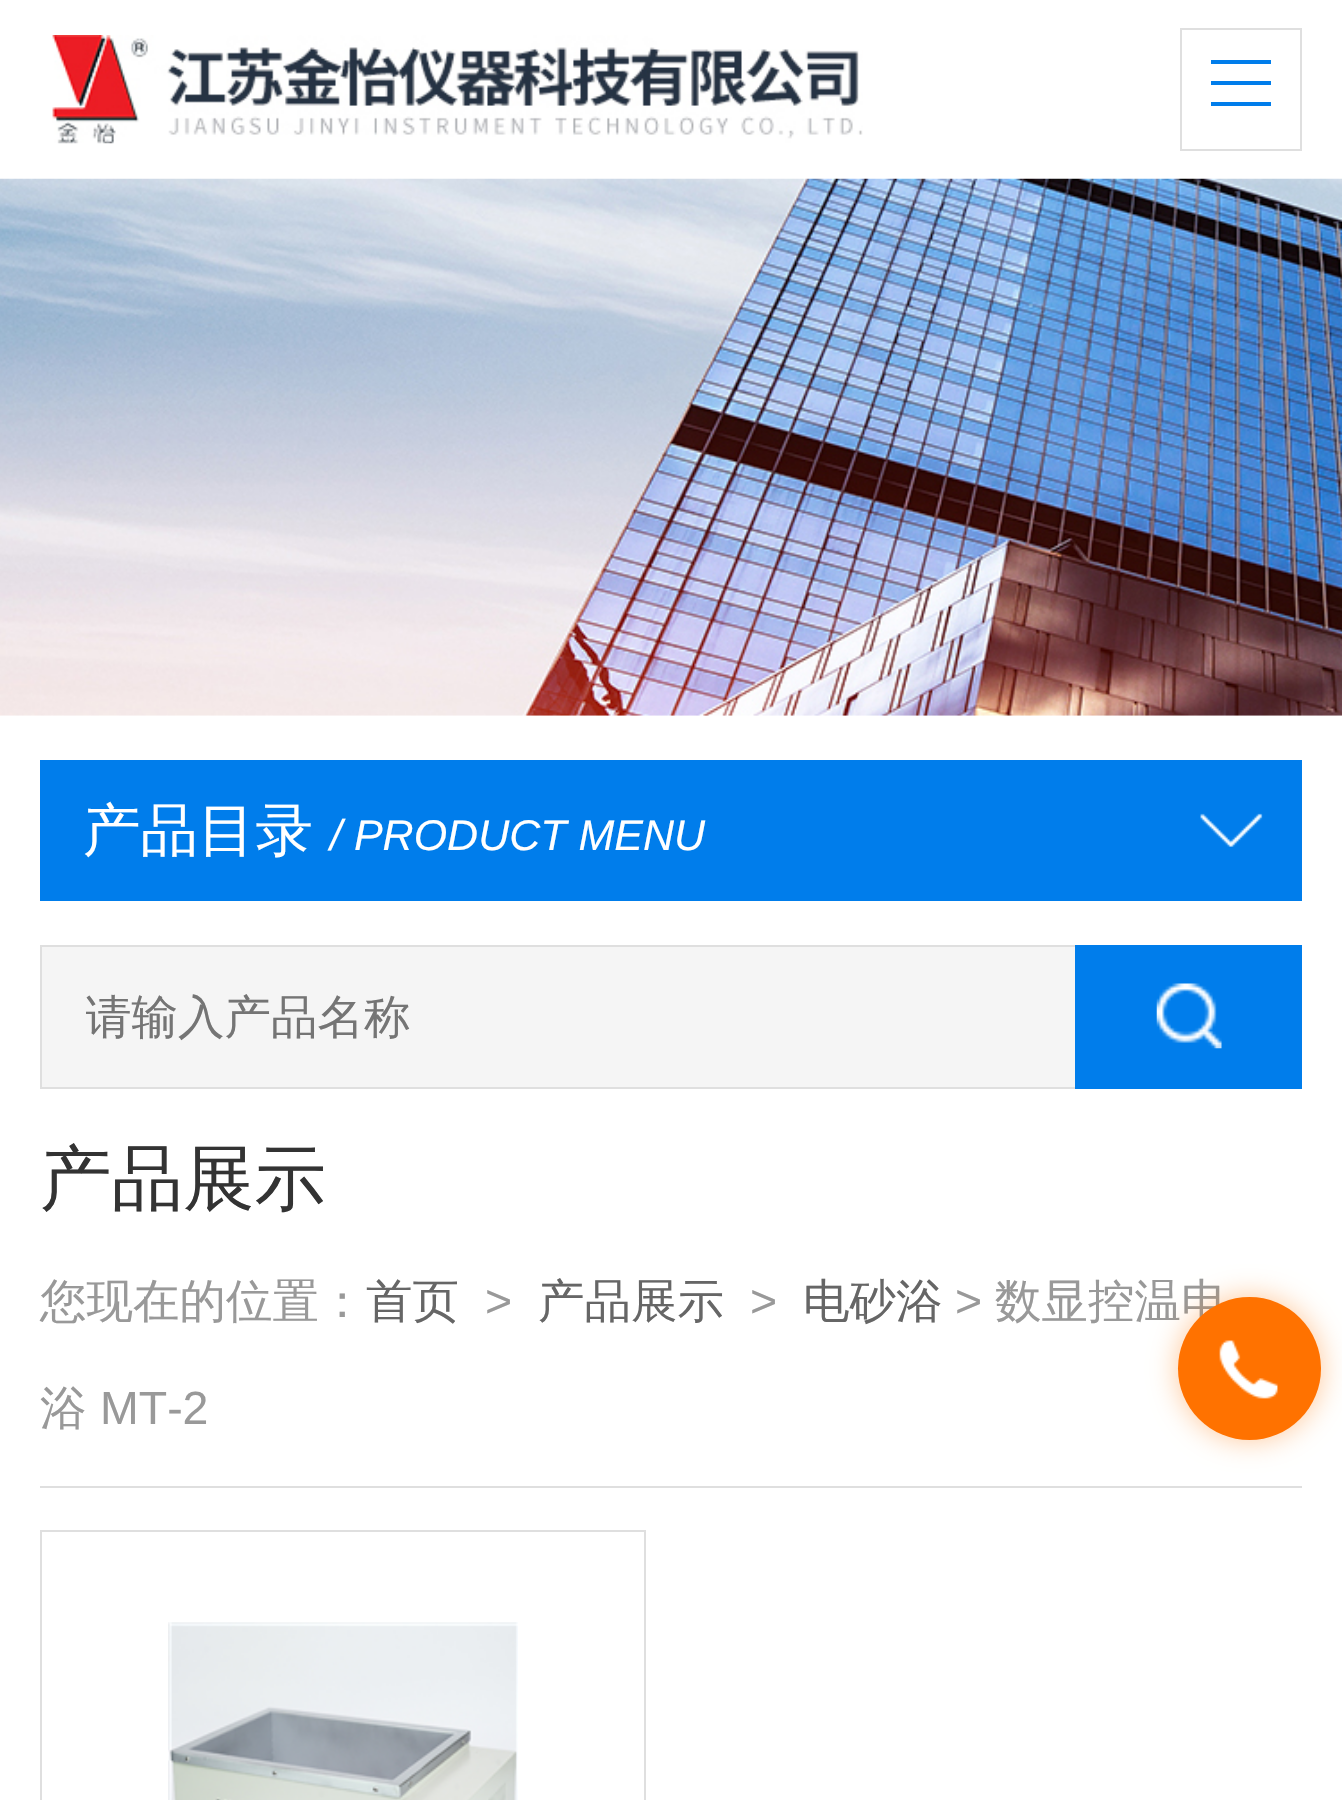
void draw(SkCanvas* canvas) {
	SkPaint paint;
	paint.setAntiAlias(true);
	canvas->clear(0xffffffff);
	canvas->drawImageRect(SkImages::DeferredFromEncodedData(SkData::MakeFromFileName("img1.png")), SkRect::MakeXYWH(52, 35, 811, 109), SkSamplingOptions());
	paint.setStroke(true);
	paint.setStrokeWidth(2);
	paint.setColor(0xffdfdfdf);
	canvas->drawRect(SkRect::MakeXYWH(1181, 29, 120, 121), paint);
	paint.setStroke(false);
	paint.setColor(0xff007deb);
	canvas->drawRect(SkRect::MakeXYWH(1211, 60, 60, 4), paint);
	canvas->drawRect(SkRect::MakeXYWH(1211, 81, 60, 4), paint);
	canvas->drawRect(SkRect::MakeXYWH(1211, 102, 60, 4), paint);
	canvas->drawImageRect(SkImages::DeferredFromEncodedData(SkData::MakeFromFileName("img2.png")), SkRect::MakeXYWH(0, 178, 1342, 538), SkSamplingOptions());
	canvas->drawRect(SkRect::MakeXYWH(40, 760, 1262, 141), paint);
	SkFont f1(fontMgr->matchFamilyStyle("WenQuanYi Zen Hei", SkFontStyle(500, SkFontStyle::kNormal_Width, SkFontStyle::kUpright_Slant)), 57.5);
	f1.setSubpixel(true);
	paint.setColor(0xffffffff);
	canvas->drawString("产品目录", 83, 850, f1, paint);
	SkFont f2(fontMgr->matchFamilyStyle("Liberation Sans", SkFontStyle::Italic()), 43);
	f2.setSubpixel(true);
	canvas->drawString("/ PRODUCT MENU", 330, 850, f2, paint);
	canvas->drawImageRect(SkImages::DeferredFromEncodedData(SkData::MakeFromFileName("img3.png")), SkRect::MakeXYWH(1200, 813, 63, 34), SkSamplingOptions());
	paint.setColor(0xfff5f5f5);
	canvas->drawRect(SkRect::MakeXYWH(42, 947, 1033, 140), paint);
	paint.setColor(0xffdfdfdf);
	canvas->drawRect(SkRect::MakeXYWH(40, 945, 1035, 2), paint);
	canvas->drawRect(SkRect::MakeXYWH(40, 1087, 1035, 2), paint);
	canvas->drawRect(SkRect::MakeXYWH(40, 945, 2, 144), paint);
	canvas->save();
	canvas->clipRect(SkRect::MakeXYWH(86, 985, 947, 63));
	SkFont f3(fontMgr->matchFamilyStyle("WenQuanYi Zen Hei", SkFontStyle(500, SkFontStyle::kNormal_Width, SkFontStyle::kUpright_Slant)), 46.5);
	f3.setSubpixel(true);
	paint.setColor(0xff757575);
	canvas->drawString("请输入产品名称", 85, 1033, f3, paint);
	canvas->restore();
	paint.setColor(0xff007deb);
	canvas->drawRect(SkRect::MakeXYWH(1075, 945, 227, 144), paint);
	canvas->drawImageRect(SkImages::DeferredFromEncodedData(SkData::MakeFromFileName("img4.png")), SkRect::MakeXYWH(1156, 983, 66, 66), SkSamplingOptions());
	paint.setColor(0xffdfdfdf);
	canvas->drawRect(SkRect::MakeXYWH(40, 1486, 1262, 2), paint);
	SkFont f4(fontMgr->matchFamilyStyle("WenQuanYi Zen Hei", SkFontStyle(500, SkFontStyle::kNormal_Width, SkFontStyle::kUpright_Slant)), 71.5);
	f4.setSubpixel(true);
	paint.setColor(0xff333333);
	canvas->drawString("产品展示", 40, 1203, f4, paint);
	paint.setColor(0xff999999);
	canvas->drawString("您现在的位置：", 40, 1317, f3, paint);
	paint.setColor(0xff666666);
	canvas->drawString("首页", 366, 1317, f3, paint);
	SkFont f5(fontMgr->matchFamilyStyle("Liberation Sans", SkFontStyle::Normal()), 46.5);
	f5.setSubpixel(true);
	paint.setColor(0xff999999);
	canvas->drawString(">", 485, 1317, f5, paint);
	paint.setColor(0xff666666);
	canvas->drawString("产品展示", 538, 1317, f3, paint);
	paint.setColor(0xff999999);
	canvas->drawString(">", 750, 1317, f5, paint);
	paint.setColor(0xff666666);
	canvas->drawString("电砂浴", 803, 1317, f3, paint);
	paint.setColor(0xff999999);
	canvas->drawString(">", 955, 1317, f5, paint);
	canvas->drawString("数显控温电", 995, 1317, f3, paint);
	canvas->drawString("浴", 40, 1424, f3, paint);
	canvas->drawString("MT-2", 100, 1424, f5, paint);
	paint.setStroke(true);
	paint.setColor(0xffdfdfdf);
	canvas->drawRect(SkRect::MakeXYWH(41, 1531, 604, 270), paint);
	canvas->drawImageRect(SkImages::DeferredFromEncodedData(SkData::MakeFromFileName("img5.png")), SkRect::MakeXYWH(168, 1622, 350, 178), SkSamplingOptions());
	paint.setStroke(false);
	paint.setColor(0x66ff7200);
	paint.setMaskFilter(SkMaskFilter::MakeBlur(kNormal_SkBlurStyle, 14.5));
	canvas->drawRoundRect(SkRect::MakeXYWH(1178, 1297, 143, 143), 71.5, 71.5, paint);
	paint.setMaskFilter(nullptr);
	paint.setColor(0xffff7200);
	canvas->drawCircle(1249.5, 1368.5, 71.5, paint);
	canvas->drawImageRect(SkImages::DeferredFromEncodedData(SkData::MakeFromFileName("img6.png")), SkRect::MakeXYWH(1219, 1340, 59, 59), SkSamplingOptions());
}
